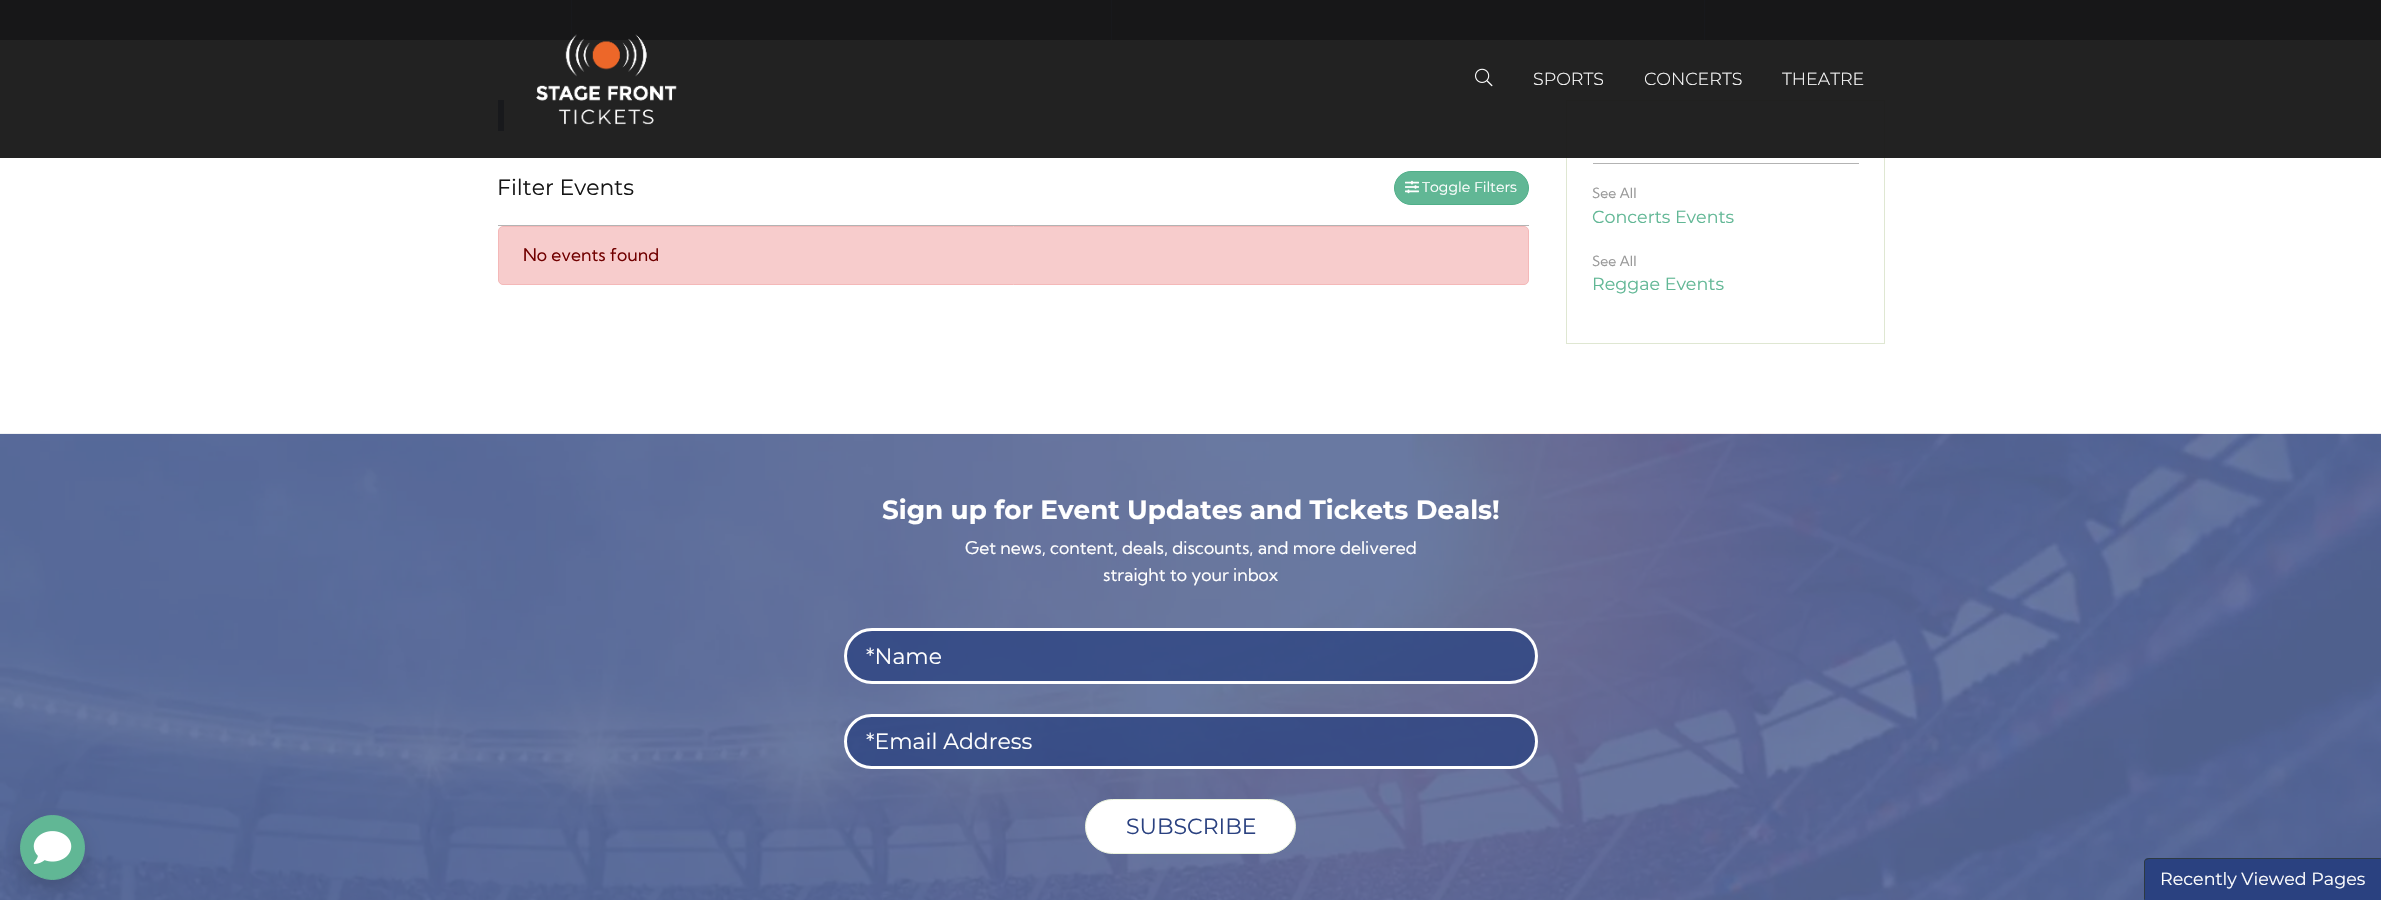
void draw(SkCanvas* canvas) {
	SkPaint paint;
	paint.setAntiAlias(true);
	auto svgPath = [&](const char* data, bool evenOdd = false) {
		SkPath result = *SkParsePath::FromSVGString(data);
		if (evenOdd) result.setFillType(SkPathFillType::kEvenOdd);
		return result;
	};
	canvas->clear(0xffffffff);
	paint.setColor(0xff243460);
	canvas->drawRect(SkRect::MakeXYWH(573, 0, 1808, 40), paint);
	paint.setColor(0xff191d28);
	canvas->drawRect(SkRect::MakeXYWH(0, 0, 573, 40), paint);
	paint.setColor(0xff2a4180);
	canvas->drawRect(SkRect::MakeXYWH(571, 0, 1, 40), paint);
	canvas->drawImageRect(SkImages::DeferredFromEncodedData(SkData::MakeFromFileName("img3.png")), SkRect::MakeXYWH(573, 0, 1808, 40), SkSamplingOptions());
	paint.setColor(0xbf161616);
	canvas->drawRect(SkRect::MakeXYWH(573, 0, 540, 40), paint);
	paint.setColor(0xff2a4180);
	canvas->drawRect(SkRect::MakeXYWH(1111, 0, 1, 40), paint);
	paint.setColor(0xbf161616);
	canvas->drawRect(SkRect::MakeXYWH(1113, 0, 591, 40), paint);
	paint.setColor(0xff2a4180);
	canvas->drawRect(SkRect::MakeXYWH(1704, 0, 1, 40), paint);
	paint.setColor(0xbf161616);
	canvas->drawRect(SkRect::MakeXYWH(1705, 0, 676, 40), paint);
	paint.setColor(0xff2a4180);
	canvas->drawRect(SkRect::MakeXYWH(498, 100, 6, 31), paint);
	paint.setStroke(true);
	paint.setStrokeWidth(1);
	paint.setColor(0xffdfe7d2);
	canvas->drawRect(SkRect::MakeXYWH(1566.5, 100.5, 318, 243), paint);
	paint.setStroke(false);
	paint.setColor(0xf2161616);
	canvas->drawRect(SkRect::MakeXYWH(0, 0, 2381, 158), paint);
	canvas->drawImageRect(SkImages::DeferredFromEncodedData(SkData::MakeFromFileName("img1.png")), SkRect::MakeXYWH(536, 34, 141, 91), SkSamplingOptions());
	canvas->drawImageRect(SkImages::DeferredFromEncodedData(SkData::MakeFromFileName("img2.png")), SkRect::MakeXYWH(1475, 68, 18, 19), SkSamplingOptions());
	SkFont f1(fontMgr->matchFamilyStyle("Montserrat", SkFontStyle(300, SkFontStyle::kNormal_Width, SkFontStyle::kUpright_Slant)), 17.5);
	f1.setSubpixel(true);
	paint.setColor(0xffffffff);
	canvas->drawString("SPORTS", 1533, 85, f1, paint);
	canvas->drawString("CONCERTS", 1644, 85, f1, paint);
	canvas->drawString("THEATRE", 1782, 85, f1, paint);
	paint.setColor(0xffb3b3b3);
	canvas->drawRect(SkRect::MakeXYWH(498, 225, 1031, 1), paint);
	SkFont f2(fontMgr->matchFamilyStyle("Montserrat", SkFontStyle::Normal()), 22);
	f2.setSubpixel(true);
	paint.setColor(0xff161616);
	canvas->drawString("Filter Events", 497, 195, f2, paint);
	paint.setColor(0xff61b795);
	canvas->drawRoundRect(SkRect::MakeXYWH(1394.5, 171.5, 134, 33), 16.5, 16.5, paint);
	paint.setStroke(true);
	paint.setColor(0xff50af89);
	canvas->drawRoundRect(SkRect::MakeXYWH(1394.5, 171.5, 134, 33), 16.5, 16.5, paint);
	canvas->drawImageRect(SkImages::DeferredFromEncodedData(SkData::MakeFromFileName("img4.png")), SkRect::MakeXYWH(1405, 180, 14, 14), SkSamplingOptions());
	SkFont f3(fontMgr->matchFamilyStyle("Montserrat", SkFontStyle::Normal()), 14);
	f3.setSubpixel(true);
	paint.setStroke(false);
	paint.setColor(0xffffffff);
	canvas->drawString("Toggle Filters", 1422, 192, f3, paint);
	paint.setColor(0xfff7cccc);
	canvas->drawRoundRect(SkRect::MakeXYWH(498.5, 226.5, 1030, 58), 4.5, 4.5, paint);
	paint.setStroke(true);
	paint.setColor(0xfff4b8b8);
	canvas->drawRoundRect(SkRect::MakeXYWH(498.5, 226.5, 1030, 58), 4.5, 4.5, paint);
	SkFont f4(fontMgr->matchFamilyStyle("Kumbh Sans", SkFontStyle::Normal()), 17.5);
	f4.setSubpixel(true);
	paint.setStroke(false);
	paint.setColor(0xff710000);
	canvas->drawString("No events found", 523, 261, f4, paint);
	paint.setColor(0xffb3b3b3);
	canvas->drawRect(SkRect::MakeXYWH(1593, 163, 266, 1), paint);
	SkFont f5(fontMgr->matchFamilyStyle("Kumbh Sans", SkFontStyle::Normal()), 14);
	f5.setSubpixel(true);
	paint.setColor(0xff999999);
	canvas->drawString("See All", 1592, 198, f5, paint);
	SkFont f6(fontMgr->matchFamilyStyle("Montserrat", SkFontStyle::Normal()), 17.5);
	f6.setSubpixel(true);
	paint.setColor(0xff61b795);
	canvas->drawString("Concerts Events", 1592, 223, f6, paint);
	paint.setColor(0xff999999);
	canvas->drawString("See All", 1592, 266, f5, paint);
	paint.setColor(0xff61b795);
	canvas->drawString("Reggae Events", 1592, 290, f6, paint);
	canvas->drawImageRect(SkImages::DeferredFromEncodedData(SkData::MakeFromFileName("img5.png")), SkRect::MakeXYWH(0, 433, 2381, 467), SkSamplingOptions());
	SkFont f7(fontMgr->matchFamilyStyle("Montserrat", SkFontStyle::Bold()), 26.25);
	f7.setSubpixel(true);
	paint.setColor(0xffffffff);
	canvas->drawString("Sign up for Event Updates and Tickets Deals!", 882, 519, f7, paint);
	canvas->drawString("Get news, content, deals, discounts, and more delivered", 965, 554, f4, paint);
	canvas->drawString("straight to your inbox", 1103, 581, f4, paint);
	paint.setColor(0xbf2a4180);
	canvas->drawRoundRect(SkRect::MakeXYWH(845.5, 629.5, 691, 53), 26.5, 26.5, paint);
	paint.setStroke(true);
	paint.setStrokeWidth(3);
	paint.setColor(0xffffffff);
	canvas->drawRoundRect(SkRect::MakeXYWH(845.5, 629.5, 691, 53), 26.5, 26.5, paint);
	paint.setStroke(false);
	canvas->drawString("*Name", 866, 664, f2, paint);
	paint.setColor(0xbf2a4180);
	canvas->drawRoundRect(SkRect::MakeXYWH(845.5, 715.5, 691, 52), 26, 26, paint);
	paint.setStroke(true);
	paint.setColor(0xffffffff);
	canvas->drawRoundRect(SkRect::MakeXYWH(845.5, 715.5, 691, 52), 26, 26, paint);
	paint.setStroke(false);
	canvas->drawString("*Email Address", 866, 749, f2, paint);
	canvas->drawRoundRect(SkRect::MakeXYWH(1085.5, 799.5, 210, 54), 27, 27, paint);
	paint.setStroke(true);
	paint.setStrokeWidth(1);
	paint.setColor(0xffebf3dd);
	canvas->drawRoundRect(SkRect::MakeXYWH(1085.5, 799.5, 210, 54), 27, 27, paint);
	paint.setStroke(false);
	paint.setColor(0xff2a4180);
	canvas->drawString("SUBSCRIBE", 1126, 834, f2, paint);
	paint.setColor(0x26000000);
	paint.setMaskFilter(SkMaskFilter::MakeBlur(kNormal_SkBlurStyle, 10));
	canvas->drawRoundRect(SkRect::MakeXYWH(20, 825, 65, 65), 32.5, 32.5, paint);
	paint.setMaskFilter(nullptr);
	paint.setColor(0xff61b795);
	canvas->drawCircle(52.5, 847.5, 32, paint);
	paint.setStroke(true);
	canvas->drawCircle(52.5, 847.5, 32, paint);
	canvas->drawImageRect(SkImages::DeferredFromEncodedData(SkData::MakeFromFileName("img6.png")), SkRect::MakeXYWH(33, 831, 39, 33), SkSamplingOptions());
	paint.setStroke(false);
	paint.setColor(0xff2a4180);
	canvas->drawPath(svgPath("M2149 858H2381V900H2144V863C2144 860 2146 858 2149 858Z"), paint);
	paint.setColor(0xff2d3a42);
	canvas->drawPath(svgPath("M2149 858L2145 859L2146 860L2149 859H2380L2381 858Z"), paint);
	canvas->drawPath(svgPath("M2145 859C2145 860 2144 861 2144 862V900L2145 899V861L2146 860Z"), paint);
	paint.setColor(0xffffffff);
	canvas->drawString("Recently Viewed Pages", 2160, 885, f6, paint);
}
